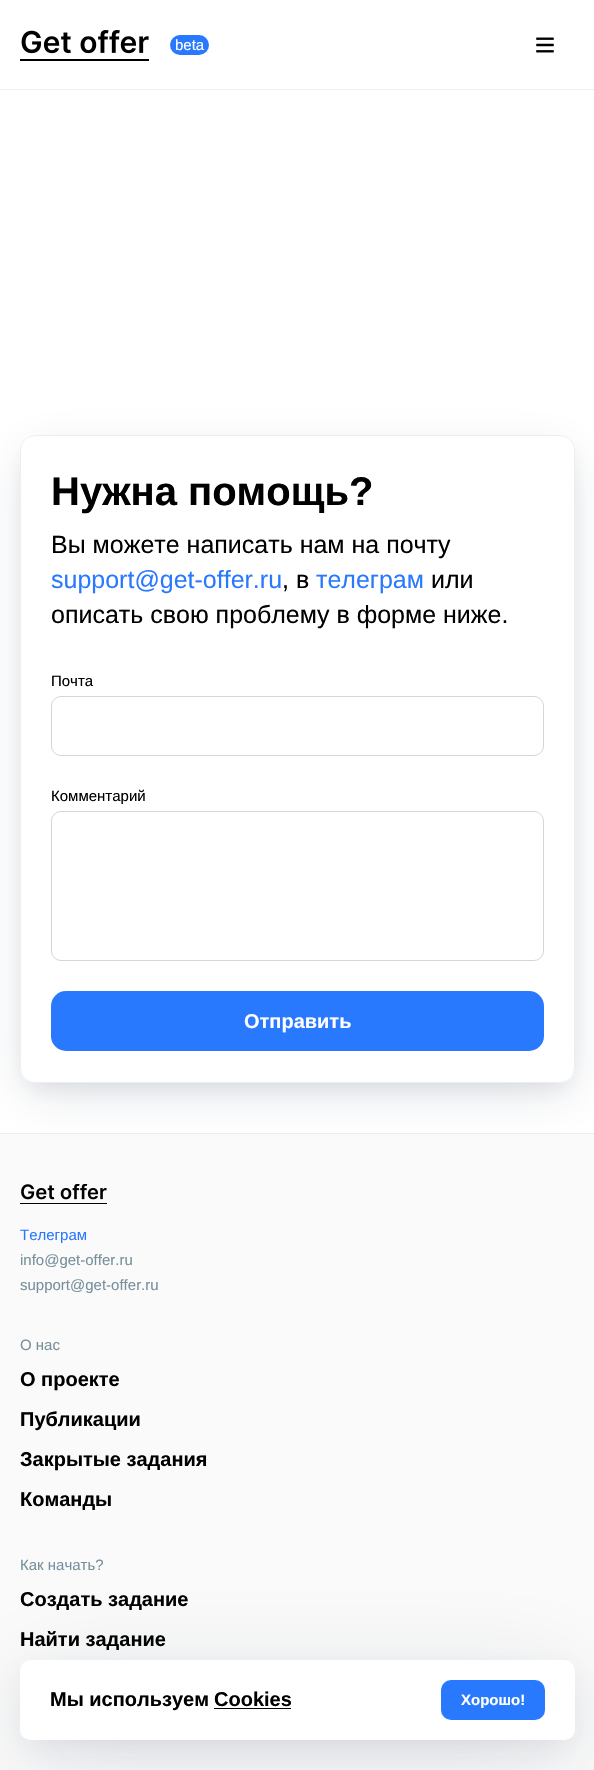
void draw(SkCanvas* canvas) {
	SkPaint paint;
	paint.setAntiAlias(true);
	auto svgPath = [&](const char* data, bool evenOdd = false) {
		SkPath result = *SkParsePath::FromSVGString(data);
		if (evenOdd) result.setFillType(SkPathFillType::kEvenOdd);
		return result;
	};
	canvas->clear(0xffffffff);
	paint.setColor(0xffeceff1);
	canvas->drawRect(SkRect::MakeXYWH(0, 89, 594, 1), paint);
	canvas->drawImageRect(SkImages::DeferredFromEncodedData(SkData::MakeFromFileName("img1.png")), SkRect::MakeXYWH(20, 30, 129, 31), SkSamplingOptions());
	paint.setColor(0xff2979ff);
	canvas->drawRoundRect(SkRect::MakeXYWH(170, 35, 39, 20), 10, 10, paint);
	SkFont f1(fontMgr->matchFamilyStyle("Liberation Sans", SkFontStyle::Normal()), 15);
	f1.setSubpixel(true);
	paint.setColor(0xffffffff);
	canvas->drawString("beta", 175, 50, f1, paint);
	canvas->drawImageRect(SkImages::DeferredFromEncodedData(SkData::MakeFromFileName("img2.png")), SkRect::MakeXYWH(536, 37, 18, 16), SkSamplingOptions());
	paint.setColor(0xfffafafa);
	canvas->drawRect(SkRect::MakeXYWH(0, 1134, 594, 636), paint);
	paint.setColor(0xffeceff1);
	canvas->drawRect(SkRect::MakeXYWH(0, 1133, 594, 1), paint);
	canvas->save();
	canvas->clipPath(svgPath("M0 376H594V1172H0ZM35 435H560C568.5 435 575 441.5 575 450V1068C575 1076.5 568.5 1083 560 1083H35C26.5 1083 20 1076.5 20 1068V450C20 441.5 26.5 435 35 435Z", true), true);
	paint.setColor(0x1f18274b);
	paint.setMaskFilter(SkMaskFilter::MakeBlur(kNormal_SkBlurStyle, 26));
	canvas->drawRoundRect(SkRect::MakeXYWH(25, 455, 545, 638), 10, 10, paint);
	paint.setMaskFilter(nullptr);
	canvas->restore();
	canvas->save();
	canvas->clipPath(svgPath("M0 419H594V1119H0ZM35 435H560C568.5 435 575 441.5 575 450V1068C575 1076.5 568.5 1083 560 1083H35C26.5 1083 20 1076.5 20 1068V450C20 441.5 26.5 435 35 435Z", true), true);
	paint.setMaskFilter(SkMaskFilter::MakeBlur(kNormal_SkBlurStyle, 11));
	canvas->drawRoundRect(SkRect::MakeXYWH(28, 453, 540, 632), 8, 8, paint);
	paint.setMaskFilter(nullptr);
	canvas->restore();
	paint.setStroke(true);
	paint.setStrokeWidth(1);
	paint.setColor(0xffeceff1);
	canvas->drawRoundRect(SkRect::MakeXYWH(20.5, 435.5, 554, 647), 14.5, 14.5, paint);
	SkFont f2(fontMgr->matchFamilyStyle("Liberation Sans", SkFontStyle::Bold()), 40);
	f2.setSubpixel(true);
	paint.setStroke(false);
	paint.setColor(0xff000000);
	canvas->drawString("Нужна помощь?", 51, 505, f2, paint);
	SkFont f3(fontMgr->matchFamilyStyle("Liberation Sans", SkFontStyle::Normal()), 25);
	f3.setSubpixel(true);
	canvas->drawString("Вы можете написать нам на почту", 51, 553, f3, paint);
	paint.setColor(0xff2979ff);
	canvas->drawString("support@get-offer.ru", 51, 588, f3, paint);
	paint.setColor(0xff000000);
	canvas->drawString(", в", 282, 588, f3, paint);
	paint.setColor(0xff2979ff);
	canvas->drawString("телеграм", 316, 588, f3, paint);
	paint.setColor(0xff000000);
	canvas->drawString("или", 431, 588, f3, paint);
	canvas->drawString("описать свою проблему в форме ниже.", 51, 623, f3, paint);
	canvas->drawString("Почта", 51, 686, f1, paint);
	paint.setStroke(true);
	paint.setColor(0xffcfd8dc);
	canvas->drawRoundRect(SkRect::MakeXYWH(51.5, 696.5, 492, 59), 9.5, 9.5, paint);
	paint.setStroke(false);
	paint.setColor(0xff000000);
	canvas->drawString("Комментарий", 51, 801, f1, paint);
	paint.setStroke(true);
	paint.setColor(0xffcfd8dc);
	canvas->drawRoundRect(SkRect::MakeXYWH(51.5, 811.5, 492, 149), 9.5, 9.5, paint);
	paint.setStroke(false);
	paint.setColor(0xff2979ff);
	canvas->drawRoundRect(SkRect::MakeXYWH(51, 991, 493, 60), 15, 15, paint);
	SkFont f4(fontMgr->matchFamilyStyle("Liberation Sans", SkFontStyle::Bold()), 20);
	f4.setSubpixel(true);
	paint.setColor(0xffffffff);
	canvas->drawString("Отправить", 244, 1028, f4, paint);
	canvas->drawImageRect(SkImages::DeferredFromEncodedData(SkData::MakeFromFileName("img3.png")), SkRect::MakeXYWH(20, 1184, 87, 20), SkSamplingOptions());
	paint.setColor(0xff2979ff);
	canvas->drawString("Телеграм", 20, 1240, f1, paint);
	paint.setColor(0xff78909c);
	canvas->drawString("info@get-offer.ru", 20, 1265, f1, paint);
	canvas->drawString("support@get-offer.ru", 20, 1290, f1, paint);
	canvas->drawString("О нас", 20, 1350, f1, paint);
	paint.setColor(0xff000000);
	canvas->drawString("О проекте", 20, 1386, f4, paint);
	canvas->drawString("Публикации", 20, 1426, f4, paint);
	canvas->drawString("Закрытые задания", 20, 1466, f4, paint);
	canvas->drawString("Команды", 20, 1506, f4, paint);
	paint.setColor(0xff78909c);
	canvas->drawString("Как начать?", 20, 1570, f1, paint);
	paint.setColor(0xff000000);
	canvas->drawString("Создать задание", 20, 1606, f4, paint);
	canvas->drawString("Найти задание", 20, 1646, f4, paint);
	paint.setColor(0x2418274b);
	paint.setMaskFilter(SkMaskFilter::MakeBlur(kNormal_SkBlurStyle, 55));
	canvas->drawRoundRect(SkRect::MakeXYWH(25, 1688, 545, 70), 5, 5, paint);
	paint.setMaskFilter(nullptr);
	paint.setColor(0x1f18274b);
	paint.setMaskFilter(SkMaskFilter::MakeBlur(kNormal_SkBlurStyle, 17.5));
	canvas->drawRoundRect(SkRect::MakeXYWH(28, 1678, 540, 65), 2.5, 2.5, paint);
	paint.setMaskFilter(nullptr);
	paint.setColor(0xffffffff);
	canvas->drawRoundRect(SkRect::MakeXYWH(20, 1660, 555, 80), 10, 10, paint);
	paint.setColor(0xff000000);
	canvas->drawString("Мы используем", 50, 1706, f4, paint);
	canvas->drawString("Cookies", 214, 1706, f4, paint);
	canvas->drawRect(SkRect::MakeXYWH(214, 1708, 77, 1), paint);
	paint.setColor(0xff2979ff);
	canvas->drawRoundRect(SkRect::MakeXYWH(441, 1680, 104, 40), 10, 10, paint);
	SkFont f5(fontMgr->matchFamilyStyle("Liberation Sans", SkFontStyle::Bold()), 15);
	f5.setSubpixel(true);
	paint.setColor(0xffffffff);
	canvas->drawString("Хорошо!", 461, 1705, f5, paint);
}
